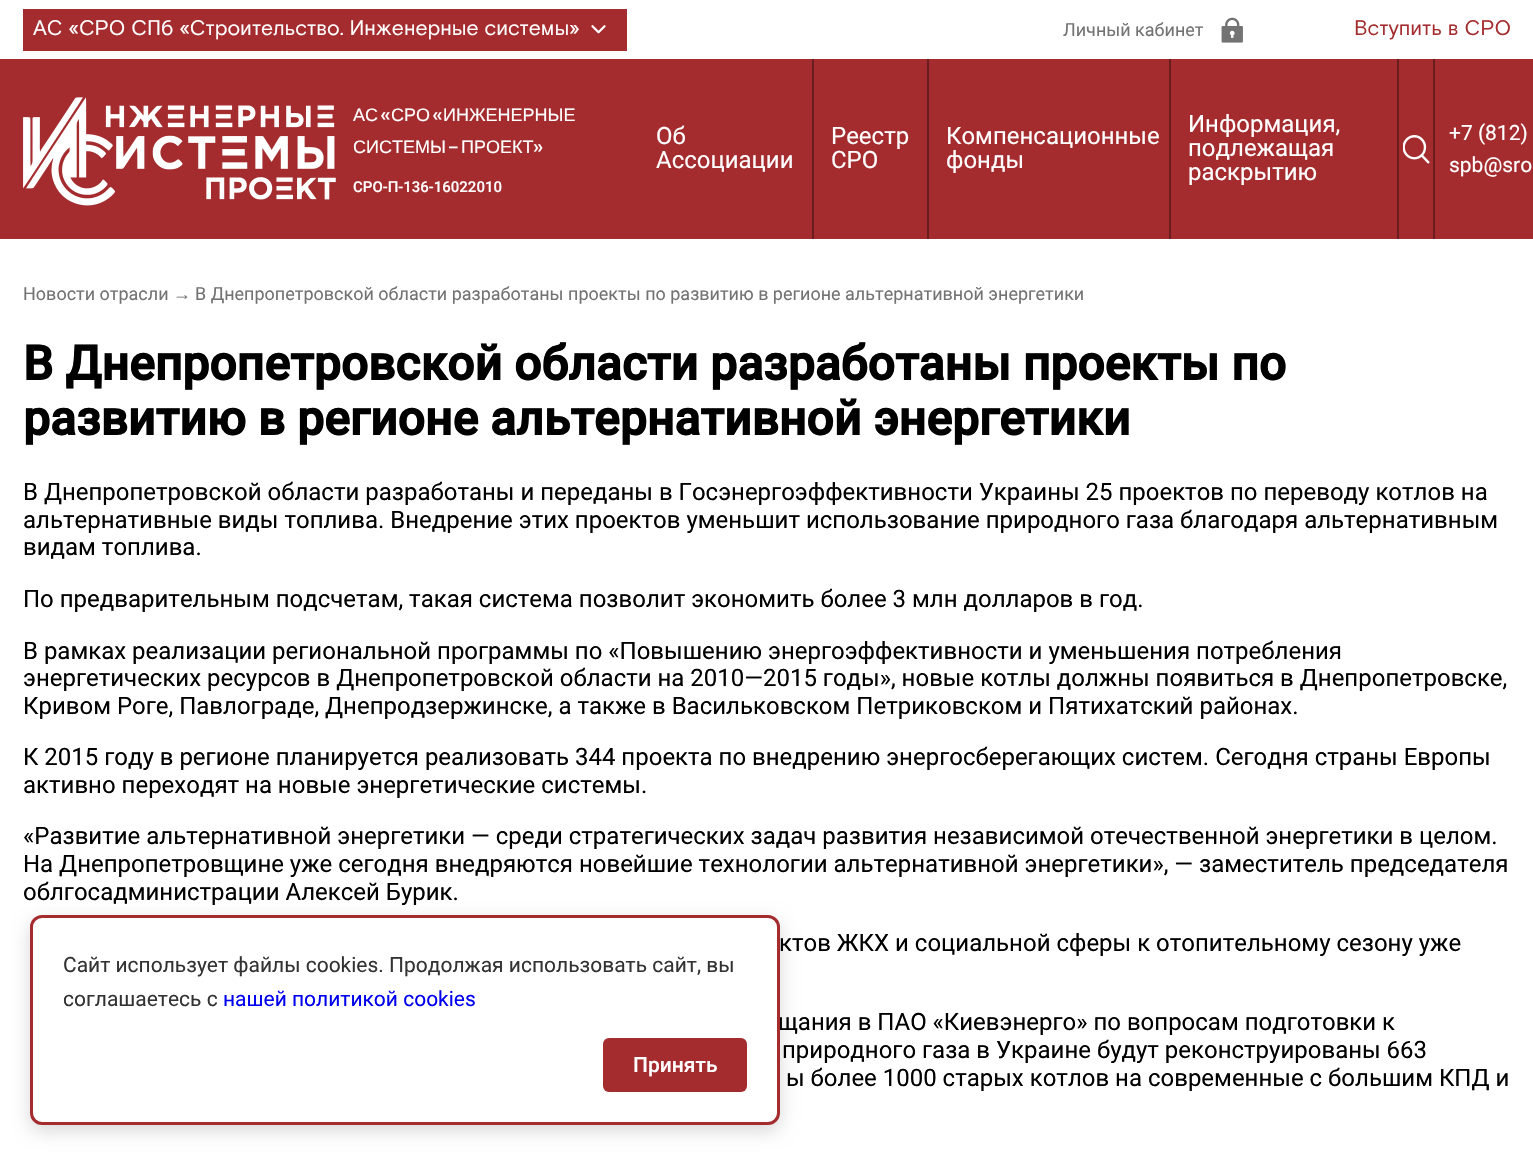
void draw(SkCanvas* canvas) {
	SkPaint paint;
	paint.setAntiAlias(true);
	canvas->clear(0xffffffff);
	paint.setColor(0xffa42c2e);
	canvas->drawRect(SkRect::MakeXYWH(23, 9, 604, 42), paint);
	SkFont f1(fontMgr->matchFamilyStyle("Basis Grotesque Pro", SkFontStyle::Normal()), 21);
	f1.setSubpixel(true);
	paint.setColor(0xffffffff);
	canvas->drawString("АС «СРО СПб «Строительство. Инженерные системы»", 33, 35, f1, paint);
	canvas->drawImageRect(SkImages::DeferredFromEncodedData(SkData::MakeFromFileName("img1.png")), SkRect::MakeXYWH(591, 25, 15, 9), SkSamplingOptions());
	SkFont f2(fontMgr->matchFamilyStyle("Roboto", SkFontStyle::Normal()), 18);
	f2.setSubpixel(true);
	paint.setColor(0xff737373);
	canvas->drawString("Личный кабинет", 1063, 36, f2, paint);
	canvas->drawImageRect(SkImages::DeferredFromEncodedData(SkData::MakeFromFileName("img2.png")), SkRect::MakeXYWH(1221, 17, 22, 26), SkSamplingOptions());
	paint.setColor(0xffa42c2e);
	canvas->drawString("Вступить в СРО", 1354, 35, f1, paint);
	canvas->drawRect(SkRect::MakeXYWH(0, 59, 1533, 180), paint);
	canvas->drawImageRect(SkImages::DeferredFromEncodedData(SkData::MakeFromFileName("img3.png")), SkRect::MakeXYWH(23, 97, 313, 109), SkSamplingOptions());
	SkFont f3(fontMgr->matchFamilyStyle("Liberation Sans", SkFontStyle::Normal()), 18);
	f3.setSubpixel(true);
	paint.setColor(0xffffffff);
	canvas->drawString("АС", 353, 121, f3, paint);
	SkFont f4(fontMgr->matchFamilyStyle("Cabin Condensed", SkFontStyle::Normal()), 18);
	f4.setSubpixel(true);
	canvas->drawString("«", 381, 121, f4, paint);
	canvas->drawString("СРО", 391, 121, f3, paint);
	canvas->drawString("«", 433, 121, f4, paint);
	canvas->drawString("ИНЖЕНЕРНЫЕ", 443, 121, f3, paint);
	canvas->drawString("СИСТЕМЫ", 353, 153, f3, paint);
	canvas->drawString("–", 449, 153, f4, paint);
	canvas->drawString("ПРОЕКТ", 461, 153, f3, paint);
	canvas->drawString("»", 533, 153, f4, paint);
	SkFont f5(fontMgr->matchFamilyStyle("Roboto", SkFontStyle(500, SkFontStyle::kNormal_Width, SkFontStyle::kUpright_Slant)), 15);
	f5.setSubpixel(true);
	canvas->drawString("СРО-П-136-16022010", 353, 192, f5, paint);
	paint.setColor(0xff6a1d1e);
	canvas->drawRect(SkRect::MakeXYWH(812, 59, 2, 180), paint);
	SkFont f6(fontMgr->matchFamilyStyle("Roboto", SkFontStyle::Normal()), 24);
	f6.setSubpixel(true);
	paint.setColor(0xffffffff);
	canvas->drawString("Об", 656, 144, f6, paint);
	canvas->drawString("Ассоциации", 656, 168, f6, paint);
	paint.setColor(0xff6a1d1e);
	canvas->drawRect(SkRect::MakeXYWH(927, 59, 2, 180), paint);
	paint.setColor(0xffffffff);
	canvas->drawString("Реестр", 831, 144, f6, paint);
	canvas->drawString("СРО", 831, 168, f6, paint);
	paint.setColor(0xff6a1d1e);
	canvas->drawRect(SkRect::MakeXYWH(1169, 59, 2, 180), paint);
	paint.setColor(0xffffffff);
	canvas->drawString("Компенсационные", 946, 144, f6, paint);
	canvas->drawString("фонды", 946, 168, f6, paint);
	paint.setColor(0xff6a1d1e);
	canvas->drawRect(SkRect::MakeXYWH(1397, 59, 2, 180), paint);
	paint.setColor(0xffffffff);
	canvas->drawString("Информация,", 1188, 132, f6, paint);
	canvas->drawString("подлежащая", 1188, 156, f6, paint);
	canvas->drawString("раскрытию", 1188, 180, f6, paint);
	canvas->drawImageRect(SkImages::DeferredFromEncodedData(SkData::MakeFromFileName("img4.png")), SkRect::MakeXYWH(1403, 135, 27, 29), SkSamplingOptions());
	paint.setColor(0xff6a1d1e);
	canvas->drawRect(SkRect::MakeXYWH(1433, 59, 2, 180), paint);
	SkFont f7(fontMgr->matchFamilyStyle("Roboto", SkFontStyle::Normal()), 21);
	f7.setSubpixel(true);
	paint.setColor(0xffffffff);
	canvas->drawString("+7 (812)", 1449, 140, f7, paint);
	canvas->drawString("spb@sro", 1449, 172, f7, paint);
	paint.setColor(0xff737373);
	canvas->drawString("Новости отрасли", 23, 300, f2, paint);
	canvas->drawString("→", 173, 300, f3, paint);
	canvas->drawString("В Днепропетровской области разработаны проекты по развитию в регионе альтернативной энергетики", 195, 300, f2, paint);
	SkFont f8(fontMgr->matchFamilyStyle("Roboto", SkFontStyle::Bold()), 48);
	f8.setSubpixel(true);
	paint.setColor(0xff000000);
	canvas->drawString("В Днепропетровской области разработаны проекты по", 23, 380, f8, paint);
	canvas->drawString("развитию в регионе альтернативной энергетики", 23, 435, f8, paint);
	canvas->drawString("В Днепропетровской области разработаны и переданы в Госэнергоэффективности Украины 25 проектов по переводу котлов на", 23, 500, f6, paint);
	canvas->drawString("альтернативные виды топлива. Внедрение этих проектов уменьшит использование природного газа благодаря альтернативным", 23, 528, f6, paint);
	canvas->drawString("видам топлива.", 23, 555, f6, paint);
	canvas->drawString("По предварительным подсчетам, такая система позволит экономить более 3 млн долларов в год.", 23, 607, f6, paint);
	canvas->drawString("В рамках реализации региональной программы по «Повышению энергоэффективности и уменьшения потребления", 23, 659, f6, paint);
	canvas->drawString("энергетических ресурсов в Днепропетровской области на 2010—2015 годы», новые котлы должны появиться в Днепропетровске,", 23, 686, f6, paint);
	canvas->drawString("Кривом Роге, Павлограде, Днепродзержинске, а также в Васильковском Петриковском и Пятихатский районах.", 23, 714, f6, paint);
	canvas->drawString("К 2015 году в регионе планируется реализовать 344 проекта по внедрению энергосберегающих систем. Сегодня страны Европы", 23, 765, f6, paint);
	canvas->drawString("активно переходят на новые энергетические системы.", 23, 793, f6, paint);
	canvas->drawString("«Развитие альтернативной энергетики — среди стратегических задач развития независимой отечественной энергетики в целом.", 23, 844, f6, paint);
	canvas->drawString("На Днепропетровщине уже сегодня внедряются новейшие технологии альтернативной энергетики», — заместитель председателя", 23, 872, f6, paint);
	canvas->drawString("облгосадминистрации Алексей Бурик.", 23, 900, f6, paint);
	canvas->drawString("ктов ЖКХ и социальной сферы к отопительному сезону уже", 779, 951, f6, paint);
	canvas->drawString("щания в ПАО «Киевэнерго» по вопросам подготовки к", 778, 1030, f6, paint);
	canvas->drawString("природного газа в Украине будут реконструированы 663", 782, 1058, f6, paint);
	canvas->drawString("ы более 1000 старых котлов на современные с большим КПД и", 786, 1086, f6, paint);
	paint.setColor(0x26000000);
	paint.setMaskFilter(SkMaskFilter::MakeBlur(kNormal_SkBlurStyle, 9));
	canvas->drawRoundRect(SkRect::MakeXYWH(30, 921, 750, 210), 12, 12, paint);
	paint.setMaskFilter(nullptr);
	paint.setColor(0xffffffff);
	canvas->drawRoundRect(SkRect::MakeXYWH(31.5, 916.5, 747, 207), 10.5, 10.5, paint);
	paint.setStroke(true);
	paint.setStrokeWidth(3);
	paint.setColor(0xffa42c2e);
	canvas->drawRoundRect(SkRect::MakeXYWH(31.5, 916.5, 747, 207), 10.5, 10.5, paint);
	paint.setStroke(false);
	paint.setColor(0xff333333);
	canvas->drawString("Сайт использует файлы cookies. Продолжая использовать сайт, вы", 63, 972, f7, paint);
	canvas->drawString("соглашаетесь с", 63, 1006, f7, paint);
	paint.setColor(0xff0000ee);
	canvas->drawString("нашей политикой cookies", 223, 1006, f7, paint);
	paint.setColor(0xffa42c2e);
	canvas->drawRoundRect(SkRect::MakeXYWH(603, 1038, 144, 54), 6, 6, paint);
	SkFont f9(fontMgr->matchFamilyStyle("Roboto", SkFontStyle(500, SkFontStyle::kNormal_Width, SkFontStyle::kUpright_Slant)), 21);
	f9.setSubpixel(true);
	paint.setColor(0xffffffff);
	canvas->drawString("Принять", 633, 1072, f9, paint);
}
